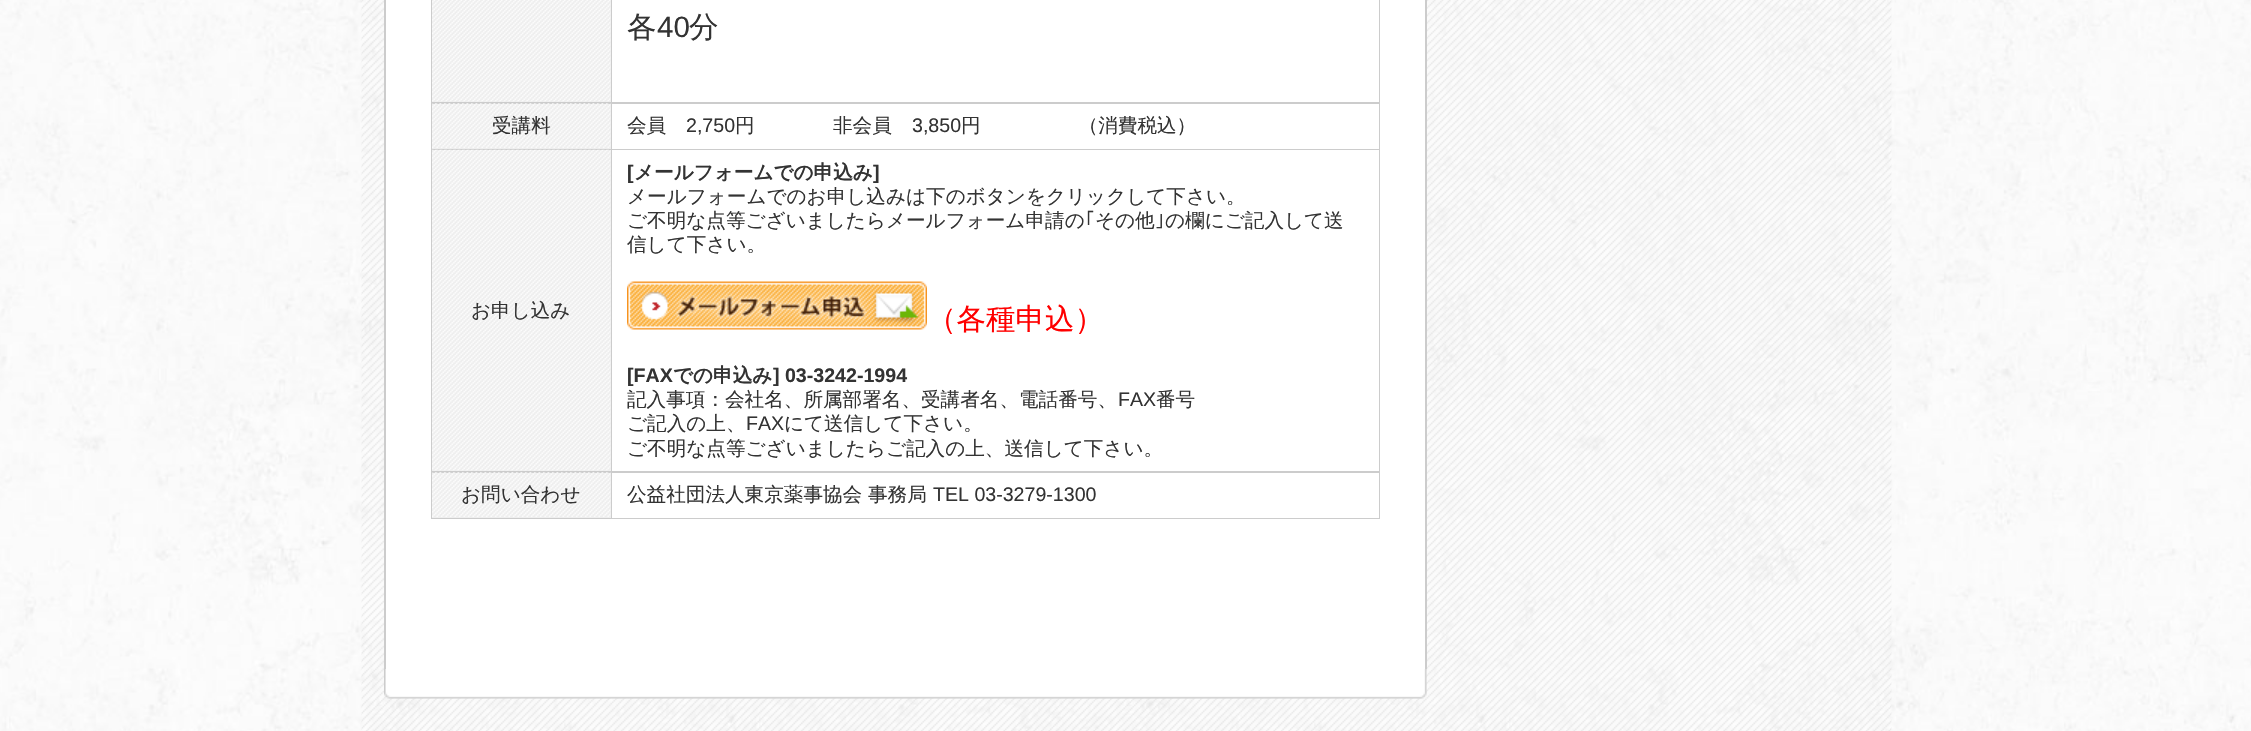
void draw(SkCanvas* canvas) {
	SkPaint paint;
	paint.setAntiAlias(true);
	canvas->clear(0xffffffff);
	canvas->drawImageRect(SkImages::DeferredFromEncodedData(SkData::MakeFromFileName("img1.png")), SkRect::MakeXYWH(0, 0, 2251, 731), SkSamplingOptions());
	canvas->drawImageRect(SkImages::DeferredFromEncodedData(SkData::MakeFromFileName("img2.png")), SkRect::MakeXYWH(361, 0, 1531, 731), SkSamplingOptions());
	canvas->drawImageRect(SkImages::DeferredFromEncodedData(SkData::MakeFromFileName("img3.png")), SkRect::MakeXYWH(384, 669, 1043, 30), SkSamplingOptions());
	paint.setColor(0xffffffff);
	canvas->drawRect(SkRect::MakeXYWH(386, 0, 1039, 669), paint);
	paint.setColor(0xffcccccc);
	canvas->drawRect(SkRect::MakeXYWH(1425, 0, 2, 669), paint);
	canvas->drawRect(SkRect::MakeXYWH(384, 0, 2, 669), paint);
	canvas->drawRect(SkRect::MakeXYWH(431, 0, 949, 519), paint);
	paint.setColor(0xffeeeeee);
	canvas->drawRect(SkRect::MakeXYWH(432, 0, 179, 102), paint);
	canvas->drawImageRect(SkImages::DeferredFromEncodedData(SkData::MakeFromFileName("img4.png")), SkRect::MakeXYWH(432, 0, 179, 102), SkSamplingOptions());
	paint.setColor(0xffffffff);
	canvas->drawRect(SkRect::MakeXYWH(612, 0, 767, 102), paint);
	SkFont f1(fontMgr->matchFamilyStyle("WenQuanYi Zen Hei", SkFontStyle(500, SkFontStyle::kNormal_Width, SkFontStyle::kUpright_Slant)), 29.5);
	f1.setSubpixel(true);
	paint.setColor(0xff333333);
	canvas->drawString("各", 627, 37, f1, paint);
	SkFont f2(fontMgr->matchFamilyStyle("Liberation Sans", SkFontStyle::Normal()), 29.5);
	f2.setSubpixel(true);
	canvas->drawString("40", 657, 37, f2, paint);
	canvas->drawString("分", 689, 37, f1, paint);
	paint.setColor(0xffeeeeee);
	canvas->drawRect(SkRect::MakeXYWH(432, 104, 179, 45), paint);
	canvas->drawImageRect(SkImages::DeferredFromEncodedData(SkData::MakeFromFileName("img5.png")), SkRect::MakeXYWH(432, 103, 179, 45), SkSamplingOptions());
	SkFont f3(fontMgr->matchFamilyStyle("WenQuanYi Zen Hei", SkFontStyle(500, SkFontStyle::kNormal_Width, SkFontStyle::kUpright_Slant)), 19.6);
	f3.setSubpixel(true);
	paint.setColor(0xff333333);
	canvas->drawString("受講料", 492, 132, f3, paint);
	paint.setColor(0xffffffff);
	canvas->drawRect(SkRect::MakeXYWH(612, 104, 767, 45), paint);
	paint.setColor(0xff333333);
	canvas->drawString("会員", 627, 132, f3, paint);
	SkFont f4(fontMgr->matchFamilyStyle("Liberation Sans", SkFontStyle::Normal()), 19.6);
	f4.setSubpixel(true);
	canvas->drawString("2,750", 686, 132, f4, paint);
	canvas->drawString("円　　　　非会員", 735, 132, f3, paint);
	canvas->drawString("3,850", 912, 132, f4, paint);
	canvas->drawString("円　　　　　（消費税込）", 961, 132, f3, paint);
	paint.setColor(0xffeeeeee);
	canvas->drawRect(SkRect::MakeXYWH(432, 150, 179, 321), paint);
	canvas->drawImageRect(SkImages::DeferredFromEncodedData(SkData::MakeFromFileName("img6.png")), SkRect::MakeXYWH(432, 149, 179, 322), SkSamplingOptions());
	paint.setColor(0xff333333);
	canvas->drawString("お申し込み", 471, 317, f3, paint);
	paint.setColor(0xffffffff);
	canvas->drawRect(SkRect::MakeXYWH(612, 150, 767, 321), paint);
	SkFont f5(fontMgr->matchFamilyStyle("Liberation Sans", SkFontStyle::Bold()), 19.6);
	f5.setSubpixel(true);
	paint.setColor(0xff333333);
	canvas->drawString("[", 627, 179, f5, paint);
	SkFont f6(fontMgr->matchFamilyStyle("WenQuanYi Zen Hei", SkFontStyle::Bold()), 19.6);
	f6.setSubpixel(true);
	canvas->drawString("メールフォームでの申込み", 634, 179, f6, paint);
	canvas->drawString("]", 873, 179, f5, paint);
	canvas->drawString("メールフォームでのお申し込みは下のボタンをクリックして下さい。", 627, 203, f3, paint);
	canvas->drawString("ご不明な点等ございましたらメールフォーム申請の", 627, 227, f3, paint);
	SkFont f7(fontMgr->matchFamilyStyle("IPAGothic", SkFontStyle::Normal()), 19.6);
	f7.setSubpixel(true);
	canvas->drawString("｢", 1085, 227, f7, paint);
	canvas->drawString("その他", 1095, 227, f3, paint);
	canvas->drawString("｣", 1155, 227, f7, paint);
	canvas->drawString("の欄にご記入して送", 1165, 227, f3, paint);
	canvas->drawString("信して下さい。", 627, 251, f3, paint);
	canvas->drawImageRect(SkImages::DeferredFromEncodedData(SkData::MakeFromFileName("img7.png")), SkRect::MakeXYWH(627, 281, 300, 49), SkSamplingOptions());
	paint.setColor(0xffff0000);
	canvas->drawString("（各種申込）", 927, 329, f1, paint);
	paint.setColor(0xff333333);
	canvas->drawString("[FAX", 627, 382, f5, paint);
	canvas->drawString("での申込み", 673, 382, f6, paint);
	canvas->drawString("] 03-3242-1994", 773, 382, f5, paint);
	canvas->drawString("記入事項：会社名、所属部署名、受講者名、電話番号、", 627, 406, f3, paint);
	canvas->drawString("FAX", 1118, 406, f4, paint);
	canvas->drawString("番号", 1156, 406, f3, paint);
	canvas->drawString("ご記入の上、", 627, 430, f3, paint);
	canvas->drawString("FAX", 746, 430, f4, paint);
	canvas->drawString("にて送信して下さい。", 784, 430, f3, paint);
	canvas->drawString("ご不明な点等ございましたらご記入の上、送信して下さい。", 627, 455, f3, paint);
	paint.setColor(0xffeeeeee);
	canvas->drawRect(SkRect::MakeXYWH(432, 473, 179, 45), paint);
	canvas->drawImageRect(SkImages::DeferredFromEncodedData(SkData::MakeFromFileName("img5.png")), SkRect::MakeXYWH(432, 472, 179, 45), SkSamplingOptions());
	paint.setColor(0xff333333);
	canvas->drawString("お問い合わせ", 461, 501, f3, paint);
	paint.setColor(0xffffffff);
	canvas->drawRect(SkRect::MakeXYWH(612, 473, 767, 45), paint);
	paint.setColor(0xff333333);
	canvas->drawString("公益社団法人東京薬事協会", 627, 501, f3, paint);
	canvas->drawString("事務局", 868, 501, f3, paint);
	canvas->drawString("TEL 03-3279-1300", 933, 501, f4, paint);
}
